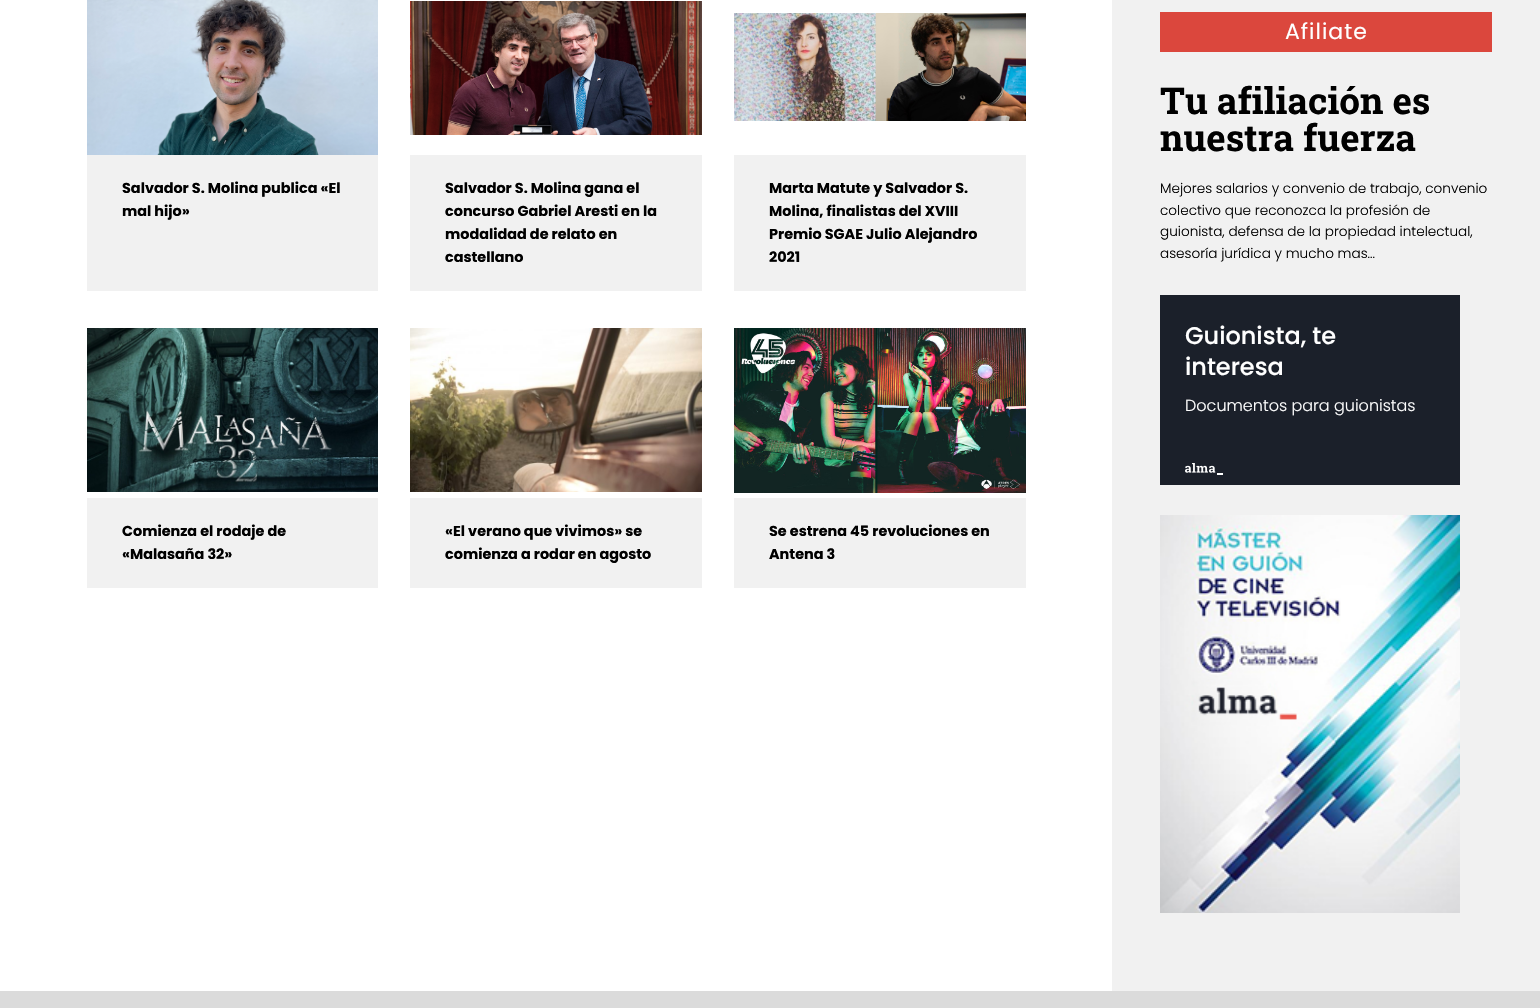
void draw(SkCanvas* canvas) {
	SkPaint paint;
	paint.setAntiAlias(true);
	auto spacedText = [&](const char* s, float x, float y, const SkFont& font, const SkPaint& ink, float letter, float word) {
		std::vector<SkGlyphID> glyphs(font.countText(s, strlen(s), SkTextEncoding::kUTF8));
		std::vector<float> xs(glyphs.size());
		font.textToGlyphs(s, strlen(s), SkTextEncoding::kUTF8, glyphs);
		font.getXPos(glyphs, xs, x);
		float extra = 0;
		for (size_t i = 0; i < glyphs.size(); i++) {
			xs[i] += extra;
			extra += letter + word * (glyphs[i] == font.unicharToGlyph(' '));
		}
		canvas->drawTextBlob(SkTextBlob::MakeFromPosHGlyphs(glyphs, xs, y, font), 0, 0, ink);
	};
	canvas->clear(0xffffffff);
	paint.setColor(0xfff1f1f1);
	canvas->drawRect(SkRect::MakeXYWH(87, 155, 291, 136), paint);
	canvas->drawImageRect(SkImages::DeferredFromEncodedData(SkData::MakeFromFileName("img1.png")), SkRect::MakeXYWH(87, 0, 291, 155), SkSamplingOptions());
	SkFont f1(fontMgr->matchFamilyStyle("Poppins", SkFontStyle::Bold()), 14.4);
	f1.setSubpixel(true);
	paint.setColor(0xff000000);
	canvas->drawString("Salvador S. Molina publica «El", 122, 193, f1, paint);
	canvas->drawString("mal hijo»", 122, 216, f1, paint);
	paint.setColor(0xfff1f1f1);
	canvas->drawRect(SkRect::MakeXYWH(410, 155, 292, 136), paint);
	canvas->drawImageRect(SkImages::DeferredFromEncodedData(SkData::MakeFromFileName("img2.png")), SkRect::MakeXYWH(410, 1, 292, 134), SkSamplingOptions());
	paint.setColor(0xff000000);
	canvas->drawString("Salvador S. Molina gana el", 445, 193, f1, paint);
	canvas->drawString("concurso Gabriel Aresti en la", 445, 216, f1, paint);
	canvas->drawString("modalidad de relato en", 445, 239, f1, paint);
	canvas->drawString("castellano", 445, 262, f1, paint);
	paint.setColor(0xfff1f1f1);
	canvas->drawRect(SkRect::MakeXYWH(734, 155, 292, 136), paint);
	canvas->drawImageRect(SkImages::DeferredFromEncodedData(SkData::MakeFromFileName("img3.png")), SkRect::MakeXYWH(734, 13, 292, 108), SkSamplingOptions());
	paint.setColor(0xff000000);
	canvas->drawString("Marta Matute y Salvador S.", 769, 193, f1, paint);
	canvas->drawString("Molina, finalistas del XVIII", 769, 216, f1, paint);
	canvas->drawString("Premio SGAE Julio Alejandro", 769, 239, f1, paint);
	canvas->drawString("2021", 769, 262, f1, paint);
	paint.setColor(0xfff1f1f1);
	canvas->drawRect(SkRect::MakeXYWH(87, 498, 291, 90), paint);
	canvas->drawImageRect(SkImages::DeferredFromEncodedData(SkData::MakeFromFileName("img4.png")), SkRect::MakeXYWH(87, 328, 291, 164), SkSamplingOptions());
	paint.setColor(0xff000000);
	canvas->drawString("Comienza el rodaje de", 122, 536, f1, paint);
	canvas->drawString("«Malasaña 32»", 122, 559, f1, paint);
	paint.setColor(0xfff1f1f1);
	canvas->drawRect(SkRect::MakeXYWH(410, 498, 292, 90), paint);
	canvas->drawImageRect(SkImages::DeferredFromEncodedData(SkData::MakeFromFileName("img5.png")), SkRect::MakeXYWH(410, 328, 292, 164), SkSamplingOptions());
	paint.setColor(0xff000000);
	canvas->drawString("«El verano que vivimos» se", 445, 536, f1, paint);
	canvas->drawString("comienza a rodar en agosto", 445, 559, f1, paint);
	paint.setColor(0xfff1f1f1);
	canvas->drawRect(SkRect::MakeXYWH(734, 498, 292, 90), paint);
	canvas->drawImageRect(SkImages::DeferredFromEncodedData(SkData::MakeFromFileName("img6.png")), SkRect::MakeXYWH(734, 328, 292, 165), SkSamplingOptions());
	paint.setColor(0xff000000);
	canvas->drawString("Se estrena 45 revoluciones en", 769, 536, f1, paint);
	canvas->drawString("Antena 3", 769, 559, f1, paint);
	paint.setColor(0xfff1f1f1);
	canvas->drawRect(SkRect::MakeXYWH(1112, 0, 428, 991), paint);
	paint.setColor(0xffdb473d);
	canvas->drawRect(SkRect::MakeXYWH(1160, 12, 332, 40), paint);
	SkFont f2(fontMgr->matchFamilyStyle("Poppins", SkFontStyle::Normal()), 22);
	f2.setSubpixel(true);
	paint.setColor(0xffffffff);
	spacedText("Afiliate", 1285, 39, f2, paint, 1, 0);
	SkFont f3(fontMgr->matchFamilyStyle("Roboto Slab", SkFontStyle::Bold()), 36.75);
	f3.setSubpixel(true);
	paint.setColor(0xff000000);
	canvas->drawString("Tu afiliación es", 1160, 114, f3, paint);
	canvas->drawString("nuestra fuerza", 1160, 151, f3, paint);
	SkFont f4(fontMgr->matchFamilyStyle("Poppins", SkFontStyle(300, SkFontStyle::kNormal_Width, SkFontStyle::kUpright_Slant)), 13.6);
	f4.setSubpixel(true);
	canvas->drawString("Mejores salarios y convenio de trabajo, convenio", 1160, 193, f4, paint);
	canvas->drawString("colectivo que reconozca la profesión de", 1160, 215, f4, paint);
	canvas->drawString("guionista, defensa de la propiedad intelectual,", 1160, 236, f4, paint);
	canvas->drawString("asesoría jurídica y mucho mas...", 1160, 258, f4, paint);
	paint.setColor(0xff1b202a);
	canvas->drawRect(SkRect::MakeXYWH(1160, 295, 300, 190), paint);
	SkFont f5(fontMgr->matchFamilyStyle("Poppins", SkFontStyle(500, SkFontStyle::kNormal_Width, SkFontStyle::kUpright_Slant)), 24);
	f5.setSubpixel(true);
	paint.setColor(0xffffffff);
	canvas->drawString("Guionista, te", 1185, 344, f5, paint);
	canvas->drawString("interesa", 1185, 375, f5, paint);
	SkFont f6(fontMgr->matchFamilyStyle("Poppins", SkFontStyle(300, SkFontStyle::kNormal_Width, SkFontStyle::kUpright_Slant)), 16);
	f6.setSubpixel(true);
	canvas->drawString("Documentos para guionistas", 1185, 411, f6, paint);
	canvas->drawImageRect(SkImages::DeferredFromEncodedData(SkData::MakeFromFileName("img7.png")), SkRect::MakeXYWH(1185, 463, 38, 12), SkSamplingOptions());
	canvas->drawImageRect(SkImages::DeferredFromEncodedData(SkData::MakeFromFileName("img8.png")), SkRect::MakeXYWH(1160, 515, 300, 398), SkSamplingOptions());
	paint.setColor(0xffdbdbdb);
	canvas->drawRect(SkRect::MakeXYWH(0, 991, 1540, 17), paint);
}
